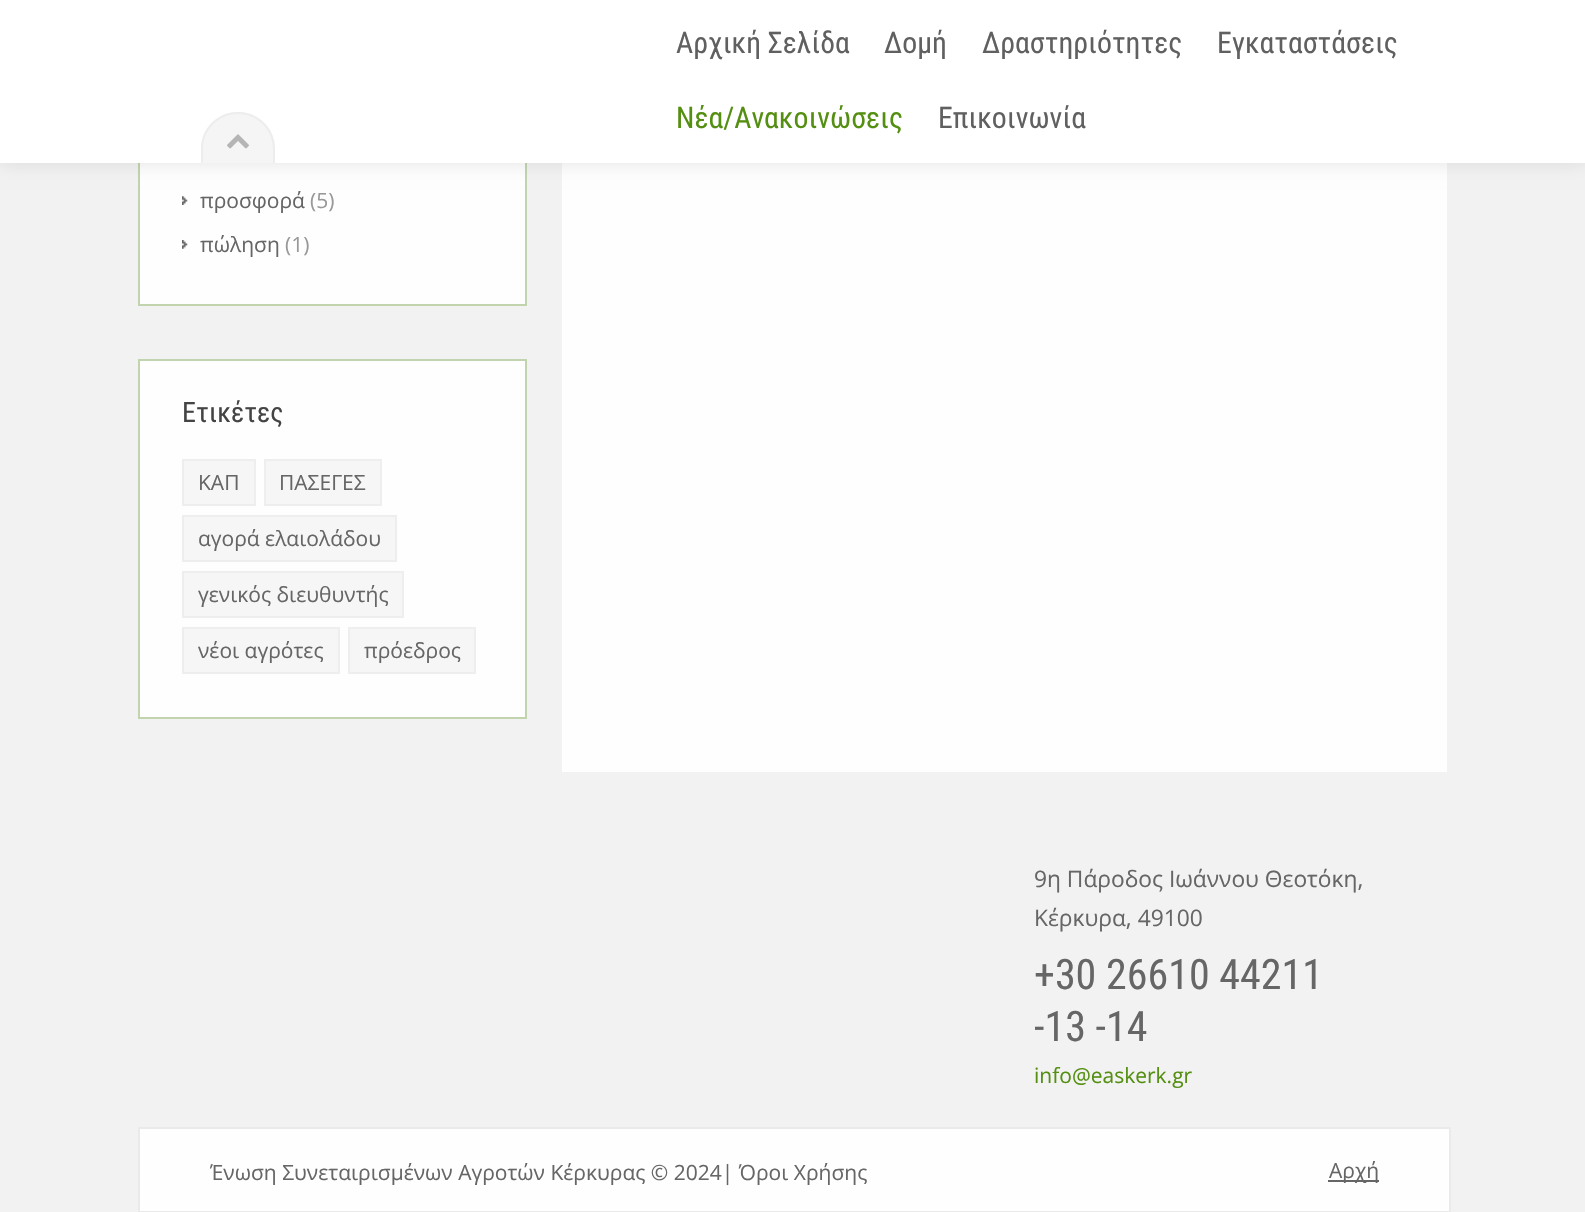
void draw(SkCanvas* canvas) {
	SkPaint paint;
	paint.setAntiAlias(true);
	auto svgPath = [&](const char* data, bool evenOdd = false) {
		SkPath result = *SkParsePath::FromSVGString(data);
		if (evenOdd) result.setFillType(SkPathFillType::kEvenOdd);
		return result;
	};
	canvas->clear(0xfff2f2f2);
	paint.setColor(0xfffefefe);
	canvas->drawRect(SkRect::MakeXYWH(140, 163, 385, 141), paint);
	paint.setStroke(true);
	paint.setStrokeWidth(2);
	paint.setColor(0xffc2d4ae);
	canvas->drawRect(SkRect::MakeXYWH(139, -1, 387, 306), paint);
	paint.setStroke(false);
	paint.setColor(0xfffefefe);
	canvas->drawRect(SkRect::MakeXYWH(562, 163, 885, 609), paint);
	paint.setColor(0x1a000000);
	paint.setMaskFilter(SkMaskFilter::MakeBlur(kNormal_SkBlurStyle, 9));
	canvas->drawRect(SkRect::MakeXYWH(0, -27, 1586, 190), paint);
	paint.setMaskFilter(nullptr);
	paint.setColor(0xffffffff);
	canvas->drawRect(SkRect::MakeXYWH(0, 0, 1585, 163), paint);
	paint.setColor(0xfff5f5f5);
	canvas->drawPath(svgPath("M238 112C258.5 112 275 128.5 275 149V163H201V149C201 128.5 217.5 112 238 112Z"), paint);
	paint.setColor(0xffededed);
	canvas->drawPath(svgPath("M238 112C258 112 275 128 275 149V163H201V149C201 128 218 112 238 112ZM238 114C257 114 273 129 273 149V163H203V149C203 129 219 114 238 114Z", true), paint);
	canvas->drawImageRect(SkImages::DeferredFromEncodedData(SkData::MakeFromFileName("img1.png")), SkRect::MakeXYWH(227, 134, 22, 15), SkSamplingOptions());
	SkFont f1(fontMgr->matchFamilyStyle("Roboto Condensed", SkFontStyle::Normal()), 29.75);
	f1.setSubpixel(true);
	paint.setColor(0xff606060);
	canvas->drawString("Αρχική Σελίδα", 676, 53, f1, paint);
	canvas->drawString("Δομή", 884, 53, f1, paint);
	canvas->drawString("Δραστηριότητες", 982, 53, f1, paint);
	canvas->drawString("Εγκαταστάσεις", 1217, 53, f1, paint);
	paint.setColor(0xff548f11);
	canvas->drawString("Νέα/Ανακοινώσεις", 676, 128, f1, paint);
	paint.setColor(0xff606060);
	canvas->drawString("Επικοινωνία", 938, 128, f1, paint);
	canvas->drawImageRect(SkImages::DeferredFromEncodedData(SkData::MakeFromFileName("img2.png")), SkRect::MakeXYWH(182, 196, 6, 9), SkSamplingOptions());
	SkFont f2(fontMgr->matchFamilyStyle("Open Sans", SkFontStyle::Normal()), 21);
	f2.setSubpixel(true);
	paint.setColor(0xff666666);
	canvas->drawString("προσφορά", 200, 208, f2, paint);
	paint.setColor(0xff999999);
	canvas->drawString("(5)", 310, 208, f2, paint);
	canvas->drawImageRect(SkImages::DeferredFromEncodedData(SkData::MakeFromFileName("img3.png")), SkRect::MakeXYWH(182, 240, 6, 9), SkSamplingOptions());
	paint.setColor(0xff666666);
	canvas->drawString("πώληση", 200, 252, f2, paint);
	paint.setColor(0xff999999);
	canvas->drawString("(1)", 285, 252, f2, paint);
	paint.setColor(0xfffefefe);
	canvas->drawRect(SkRect::MakeXYWH(139, 360, 387, 358), paint);
	paint.setStroke(true);
	paint.setColor(0xffc2d4ae);
	canvas->drawRect(SkRect::MakeXYWH(139, 360, 387, 358), paint);
	SkFont f3(fontMgr->matchFamilyStyle("Roboto Condensed", SkFontStyle::Normal()), 28);
	f3.setSubpixel(true);
	paint.setStroke(false);
	paint.setColor(0xff444444);
	canvas->drawString("Ετικέτες", 182, 422, f3, paint);
	paint.setColor(0xfff6f6f6);
	canvas->drawRect(SkRect::MakeXYWH(183, 460, 72, 45), paint);
	paint.setStroke(true);
	paint.setColor(0xffeeeeee);
	canvas->drawRect(SkRect::MakeXYWH(183, 460, 72, 45), paint);
	paint.setStroke(false);
	paint.setColor(0xff666666);
	canvas->drawString("ΚΑΠ", 198, 490, f2, paint);
	paint.setColor(0xfff6f6f6);
	canvas->drawRect(SkRect::MakeXYWH(265, 460, 116, 45), paint);
	paint.setStroke(true);
	paint.setColor(0xffeeeeee);
	canvas->drawRect(SkRect::MakeXYWH(265, 460, 116, 45), paint);
	paint.setStroke(false);
	paint.setColor(0xff666666);
	canvas->drawString("ΠΑΣΕΓΕΣ", 279, 490, f2, paint);
	paint.setColor(0xfff6f6f6);
	canvas->drawRect(SkRect::MakeXYWH(183, 516, 213, 45), paint);
	paint.setStroke(true);
	paint.setColor(0xffeeeeee);
	canvas->drawRect(SkRect::MakeXYWH(183, 516, 213, 45), paint);
	paint.setStroke(false);
	paint.setColor(0xff666666);
	canvas->drawString("αγορά ελαιολάδου", 198, 546, f2, paint);
	paint.setColor(0xfff6f6f6);
	canvas->drawRect(SkRect::MakeXYWH(183, 572, 220, 45), paint);
	paint.setStroke(true);
	paint.setColor(0xffeeeeee);
	canvas->drawRect(SkRect::MakeXYWH(183, 572, 220, 45), paint);
	paint.setStroke(false);
	paint.setColor(0xff666666);
	canvas->drawString("γενικός διευθυντής", 198, 602, f2, paint);
	paint.setColor(0xfff6f6f6);
	canvas->drawRect(SkRect::MakeXYWH(183, 628, 156, 45), paint);
	paint.setStroke(true);
	paint.setColor(0xffeeeeee);
	canvas->drawRect(SkRect::MakeXYWH(183, 628, 156, 45), paint);
	paint.setStroke(false);
	paint.setColor(0xff666666);
	canvas->drawString("νέοι αγρότες", 198, 658, f2, paint);
	paint.setColor(0xfff6f6f6);
	canvas->drawRect(SkRect::MakeXYWH(349, 628, 126, 45), paint);
	paint.setStroke(true);
	paint.setColor(0xffeeeeee);
	canvas->drawRect(SkRect::MakeXYWH(349, 628, 126, 45), paint);
	paint.setStroke(false);
	paint.setColor(0xff666666);
	canvas->drawString("πρόεδρος", 364, 658, f2, paint);
	SkFont f4(fontMgr->matchFamilyStyle("Open Sans", SkFontStyle::Normal()), 22.75);
	f4.setSubpixel(true);
	canvas->drawString("9η Πάροδος Ιωάννου Θεοτόκη,", 1034, 887, f4, paint);
	canvas->drawString("Κέρκυρα, 49100", 1034, 926, f4, paint);
	SkFont f5(fontMgr->matchFamilyStyle("Roboto Condensed", SkFontStyle::Normal()), 42);
	f5.setSubpixel(true);
	canvas->drawString("+30 26610 44211", 1034, 989, f5, paint);
	canvas->drawString("-13 -14", 1034, 1041, f5, paint);
	paint.setColor(0xff548f11);
	canvas->drawString("info@easkerk.gr", 1034, 1083, f2, paint);
	paint.setColor(0xfffefefe);
	canvas->drawRect(SkRect::MakeXYWH(139, 1128, 1311, 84), paint);
	paint.setStroke(true);
	paint.setColor(0xffeaeaea);
	canvas->drawRect(SkRect::MakeXYWH(139, 1128, 1311, 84), paint);
	paint.setStroke(false);
	paint.setColor(0xff666666);
	canvas->drawString("Ένωση Συνεταιρισμένων Αγροτών Κέρκυρας © 2024| Όροι Χρήσης", 210, 1180, f2, paint);
	canvas->drawRect(SkRect::MakeXYWH(1328, 1180, 51, 2), paint);
	canvas->drawString("Αρχή", 1329, 1178, f2, paint);
}
